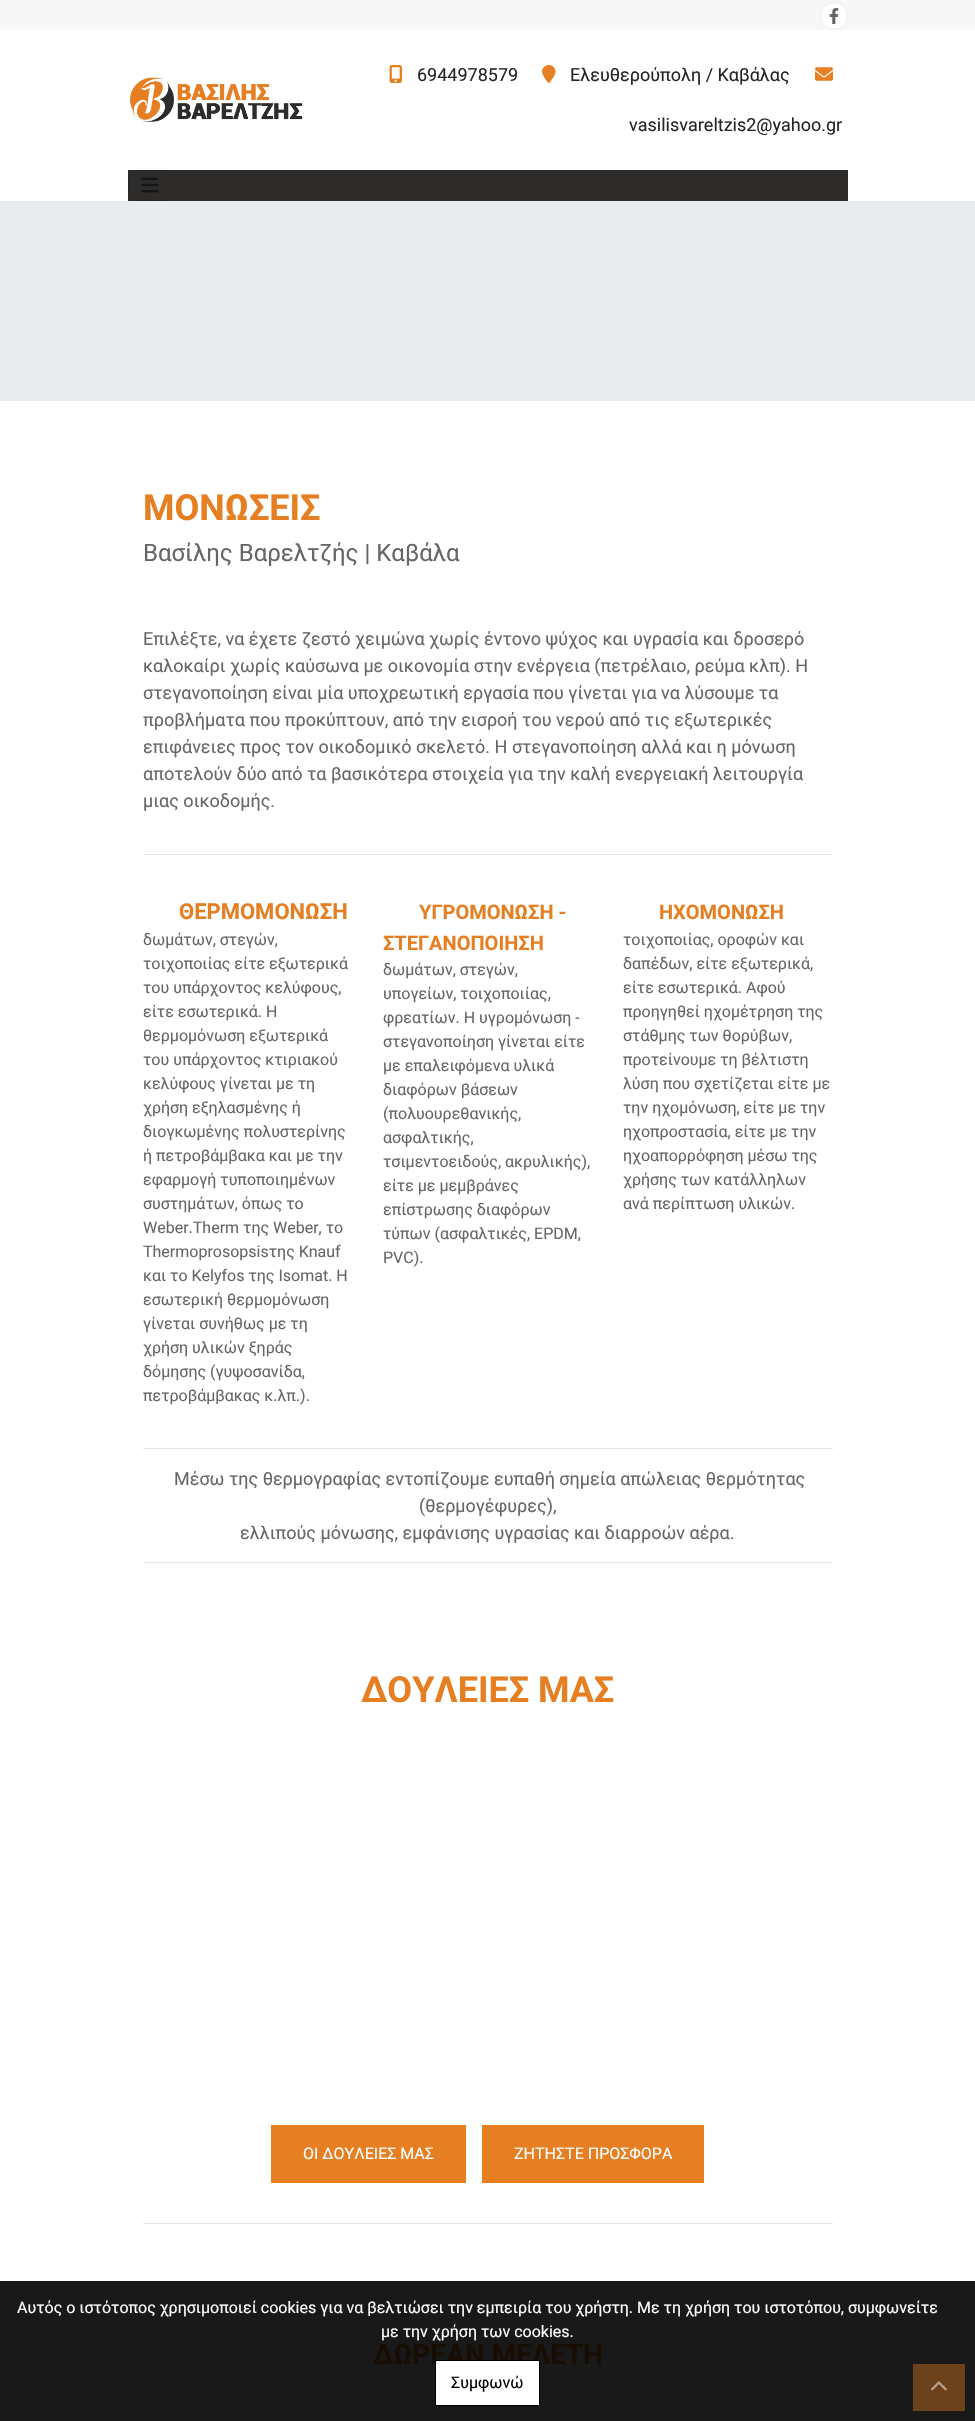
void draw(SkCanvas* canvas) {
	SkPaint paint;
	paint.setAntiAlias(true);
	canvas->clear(0xffffffff);
	paint.setColor(0xff191919);
	canvas->drawRect(SkRect::MakeXYWH(0, 2281, 975, 140), paint);
	paint.setColor(0xfff7f7f7);
	canvas->drawRect(SkRect::MakeXYWH(0, 0, 975, 30), paint);
	paint.setColor(0xffffffff);
	canvas->drawCircle(834, 16, 13.5, paint);
	paint.setStroke(true);
	paint.setStrokeWidth(1);
	paint.setColor(0xffeeeeee);
	canvas->drawCircle(834, 16, 13.5, paint);
	canvas->drawImageRect(SkImages::DeferredFromEncodedData(SkData::MakeFromFileName("img1.png")), SkRect::MakeXYWH(829, 8, 10, 16), SkSamplingOptions());
	canvas->drawImageRect(SkImages::DeferredFromEncodedData(SkData::MakeFromFileName("img2.png")), SkRect::MakeXYWH(130, 77, 173, 45), SkSamplingOptions());
	canvas->drawImageRect(SkImages::DeferredFromEncodedData(SkData::MakeFromFileName("img3.png")), SkRect::MakeXYWH(389, 65, 13, 18), SkSamplingOptions());
	SkFont f1(fontMgr->matchFamilyStyle("Roboto", SkFontStyle::Normal()), 18);
	f1.setSubpixel(true);
	paint.setStroke(false);
	paint.setColor(0xff252525);
	canvas->drawString("6944978579", 417, 81, f1, paint);
	canvas->drawImageRect(SkImages::DeferredFromEncodedData(SkData::MakeFromFileName("img4.png")), SkRect::MakeXYWH(542, 65, 14, 18), SkSamplingOptions());
	canvas->drawString("Ελευθερούπολη / Καβάλας", 570, 81, f1, paint);
	canvas->drawImageRect(SkImages::DeferredFromEncodedData(SkData::MakeFromFileName("img5.png")), SkRect::MakeXYWH(815, 67, 18, 14), SkSamplingOptions());
	canvas->drawString("vasilisvareltzis2@yahoo.gr", 629, 131, f1, paint);
	paint.setColor(0xff2e2c2b);
	canvas->drawRect(SkRect::MakeXYWH(128, 170, 720, 31), paint);
	paint.setStroke(true);
	paint.setColor(0xff292827);
	canvas->drawRoundRect(SkRect::MakeXYWH(128.5, 170.5, 42, 30), 3.5, 3.5, paint);
	canvas->drawImageRect(SkImages::DeferredFromEncodedData(SkData::MakeFromFileName("img6.png")), SkRect::MakeXYWH(141, 177, 18, 16), SkSamplingOptions());
	paint.setStroke(false);
	paint.setColor(0xffe9ecef);
	canvas->drawRect(SkRect::MakeXYWH(0, 201, 975, 200), paint);
	SkFont f2(fontMgr->matchFamilyStyle("Roboto", SkFontStyle::Bold()), 36);
	f2.setSubpixel(true);
	paint.setColor(0xffe67e22);
	canvas->drawString("ΜΟΝΩΣΕΙΣ", 143, 520, f2, paint);
	SkFont f3(fontMgr->matchFamilyStyle("Roboto", SkFontStyle::Normal()), 24);
	f3.setSubpixel(true);
	paint.setColor(0xff666666);
	canvas->drawString("Βασίλης Βαρελτζής | Καβάλα", 143, 561, f3, paint);
	canvas->drawString("Επιλέξτε, να έχετε ζεστό χειμώνα χωρίς έντονο ψύχος και υγρασία και δροσερό", 143, 645, f1, paint);
	canvas->drawString("καλοκαίρι χωρίς καύσωνα με οικονομία στην ενέργεια (πετρέλαιο, ρεύμα κλπ). Η", 143, 672, f1, paint);
	canvas->drawString("στεγανοποίηση είναι μία υποχρεωτική εργασία που γίνεται για να λύσουμε τα", 143, 699, f1, paint);
	canvas->drawString("προβλήματα που προκύπτουν, από την εισροή του νερού από τις εξωτερικές", 143, 726, f1, paint);
	canvas->drawString("επιφάνειες προς τον οικοδομικό σκελετό. Η στεγανοποίηση αλλά και η μόνωση", 143, 753, f1, paint);
	canvas->drawString("αποτελούν δύο από τα βασικότερα στοιχεία για την καλή ενεργειακή λειτουργία", 143, 780, f1, paint);
	canvas->drawString("μιας οικοδομής.", 143, 807, f1, paint);
	paint.setColor(0xffe6e6e6);
	canvas->drawRect(SkRect::MakeXYWH(143, 854, 690, 1), paint);
	SkFont f4(fontMgr->matchFamilyStyle("Roboto", SkFontStyle::Bold()), 22);
	f4.setSubpixel(true);
	paint.setColor(0xffe67e22);
	canvas->drawString("ΘΕΡΜΟΜΟΝΩΣΗ", 179, 919, f4, paint);
	SkFont f5(fontMgr->matchFamilyStyle("Roboto", SkFontStyle::Normal()), 16);
	f5.setSubpixel(true);
	paint.setColor(0xff666666);
	canvas->drawString("δωμάτων, στεγών,", 143, 945, f5, paint);
	canvas->drawString("τοιχοποιίας είτε εξωτερικά", 143, 969, f5, paint);
	canvas->drawString("του υπάρχοντος κελύφους,", 143, 993, f5, paint);
	canvas->drawString("είτε εσωτερικά. Η", 143, 1017, f5, paint);
	canvas->drawString("θερμομόνωση εξωτερικά", 143, 1041, f5, paint);
	canvas->drawString("του υπάρχοντος κτιριακού", 143, 1065, f5, paint);
	canvas->drawString("κελύφους γίνεται με τη", 143, 1089, f5, paint);
	canvas->drawString("χρήση εξηλασμένης ή", 143, 1113, f5, paint);
	canvas->drawString("διογκωμένης πολυστερίνης", 143, 1137, f5, paint);
	canvas->drawString("ή πετροβάμβακα και με την", 143, 1161, f5, paint);
	canvas->drawString("εφαρμογή τυποποιημένων", 143, 1185, f5, paint);
	canvas->drawString("συστημάτων, όπως το", 143, 1209, f5, paint);
	canvas->drawString("Weber.Therm της Weber, το", 143, 1233, f5, paint);
	canvas->drawString("Thermoprosopsisτης Knauf", 143, 1257, f5, paint);
	canvas->drawString("και το Kelyfos της Isomat. Η", 143, 1281, f5, paint);
	canvas->drawString("εσωτερική θερμομόνωση", 143, 1305, f5, paint);
	canvas->drawString("γίνεται συνήθως με τη", 143, 1329, f5, paint);
	canvas->drawString("χρήση υλικών ξηράς", 143, 1353, f5, paint);
	canvas->drawString("δόμησης (γυψοσανίδα,", 143, 1377, f5, paint);
	canvas->drawString("πετροβάμβακας κ.λπ.).", 143, 1401, f5, paint);
	SkFont f6(fontMgr->matchFamilyStyle("Roboto", SkFontStyle::Bold()), 20);
	f6.setSubpixel(true);
	paint.setColor(0xffe67e22);
	canvas->drawString("ΥΓΡΟΜΟΝΩΣΗ -", 419, 919, f6, paint);
	canvas->drawString("ΣΤΕΓΑΝΟΠΟΙΗΣΗ", 383, 950, f6, paint);
	paint.setColor(0xff666666);
	canvas->drawString("δωμάτων, στεγών,", 383, 975, f5, paint);
	canvas->drawString("υπογείων, τοιχοποιίας,", 383, 999, f5, paint);
	canvas->drawString("φρεατίων. Η υγρομόνωση -", 383, 1023, f5, paint);
	canvas->drawString("στεγανοποίηση γίνεται είτε", 383, 1047, f5, paint);
	canvas->drawString("με επαλειφόμενα υλικά", 383, 1071, f5, paint);
	canvas->drawString("διαφόρων βάσεων", 383, 1095, f5, paint);
	canvas->drawString("(πολυουρεθανικής,", 383, 1119, f5, paint);
	canvas->drawString("ασφαλτικής,", 383, 1143, f5, paint);
	canvas->drawString("τσιμεντοειδούς, ακρυλικής),", 383, 1167, f5, paint);
	canvas->drawString("είτε με μεμβράνες", 383, 1191, f5, paint);
	canvas->drawString("επίστρωσης διαφόρων", 383, 1215, f5, paint);
	canvas->drawString("τύπων (ασφαλτικές, EPDM,", 383, 1239, f5, paint);
	canvas->drawString("PVC).", 383, 1263, f5, paint);
	paint.setColor(0xffe67e22);
	canvas->drawString("ΗΧΟΜΟΝΩΣΗ", 659, 919, f6, paint);
	paint.setColor(0xff666666);
	canvas->drawString("τοιχοποιίας, οροφών και", 623, 945, f5, paint);
	canvas->drawString("δαπέδων, είτε εξωτερικά,", 623, 969, f5, paint);
	canvas->drawString("είτε εσωτερικά. Αφού", 623, 993, f5, paint);
	canvas->drawString("προηγηθεί ηχομέτρηση της", 623, 1017, f5, paint);
	canvas->drawString("στάθμης των θορύβων,", 623, 1041, f5, paint);
	canvas->drawString("προτείνουμε τη βέλτιστη", 623, 1065, f5, paint);
	canvas->drawString("λύση που σχετίζεται είτε με", 623, 1089, f5, paint);
	canvas->drawString("την ηχομόνωση, είτε με την", 623, 1113, f5, paint);
	canvas->drawString("ηχοπροστασία, είτε με την", 623, 1137, f5, paint);
	canvas->drawString("ηχοαπορρόφηση μέσω της", 623, 1161, f5, paint);
	canvas->drawString("χρήσης των κατάλληλων", 623, 1185, f5, paint);
	canvas->drawString("ανά περίπτωση υλικών.", 623, 1209, f5, paint);
	paint.setColor(0xffe6e6e6);
	canvas->drawRect(SkRect::MakeXYWH(143, 1448, 690, 1), paint);
	paint.setColor(0xff666666);
	canvas->drawString("Μέσω της θερμογραφίας εντοπίζουμε ευπαθή σημεία απώλειας θερμότητας", 174, 1485, f1, paint);
	canvas->drawString("(θερμογέφυρες),", 419, 1512, f1, paint);
	canvas->drawString("ελλιπούς μόνωσης, εμφάνισης υγρασίας και διαρροών αέρα.", 240, 1539, f1, paint);
	paint.setColor(0xffe6e6e6);
	canvas->drawRect(SkRect::MakeXYWH(143, 1562, 690, 1), paint);
	paint.setColor(0xffe67e22);
	canvas->drawString("ΔΟΥΛΕΙΕΣ ΜΑΣ", 361, 1702, f2, paint);
	canvas->drawRect(SkRect::MakeXYWH(271, 2125, 195, 58), paint);
	paint.setColor(0xffffffff);
	canvas->drawString("ΟΙ ΔΟΥΛΕΙΕΣ ΜΑΣ", 303, 2159, f5, paint);
	paint.setColor(0xffe67e22);
	canvas->drawRect(SkRect::MakeXYWH(482, 2125, 222, 58), paint);
	paint.setColor(0xffffffff);
	canvas->drawString("ΖΗΤΗΣΤΕ ΠΡΟΣΦΟΡΑ", 514, 2159, f5, paint);
	paint.setColor(0xffe6e6e6);
	canvas->drawRect(SkRect::MakeXYWH(143, 2223, 690, 1), paint);
	SkFont f7(fontMgr->matchFamilyStyle("Roboto", SkFontStyle::Bold()), 28);
	f7.setSubpixel(true);
	paint.setColor(0xff170d03);
	canvas->drawString("ΔΩΡΕΑΝ ΜΕΛΕΤΗ", 373, 2364, f7, paint);
	paint.setColor(0xffffffff);
	canvas->drawString("Αυτός ο ιστότοπος χρησιμοποιεί cookies για να βελτιώσει την εμπειρία του χρήστη. Με τη χρήση του ιστοτόπου, συμφωνείτε", 17, 2313, f5, paint);
	canvas->drawString("με την χρήση των cookies.", 381, 2337, f5, paint);
	canvas->drawRect(SkRect::MakeXYWH(435.5, 2360.5, 104, 45), paint);
	paint.setStroke(true);
	paint.setColor(0xff000000);
	canvas->drawRect(SkRect::MakeXYWH(435.5, 2360.5, 104, 45), paint);
	paint.setStroke(false);
	canvas->drawString("Συμφωνώ", 451, 2388, f5, paint);
	paint.setColor(0xff6c421d);
	canvas->drawRect(SkRect::MakeXYWH(913, 2364, 52, 47), paint);
	canvas->drawImageRect(SkImages::DeferredFromEncodedData(SkData::MakeFromFileName("img7.png")), SkRect::MakeXYWH(931, 2381, 16, 10), SkSamplingOptions());
}
